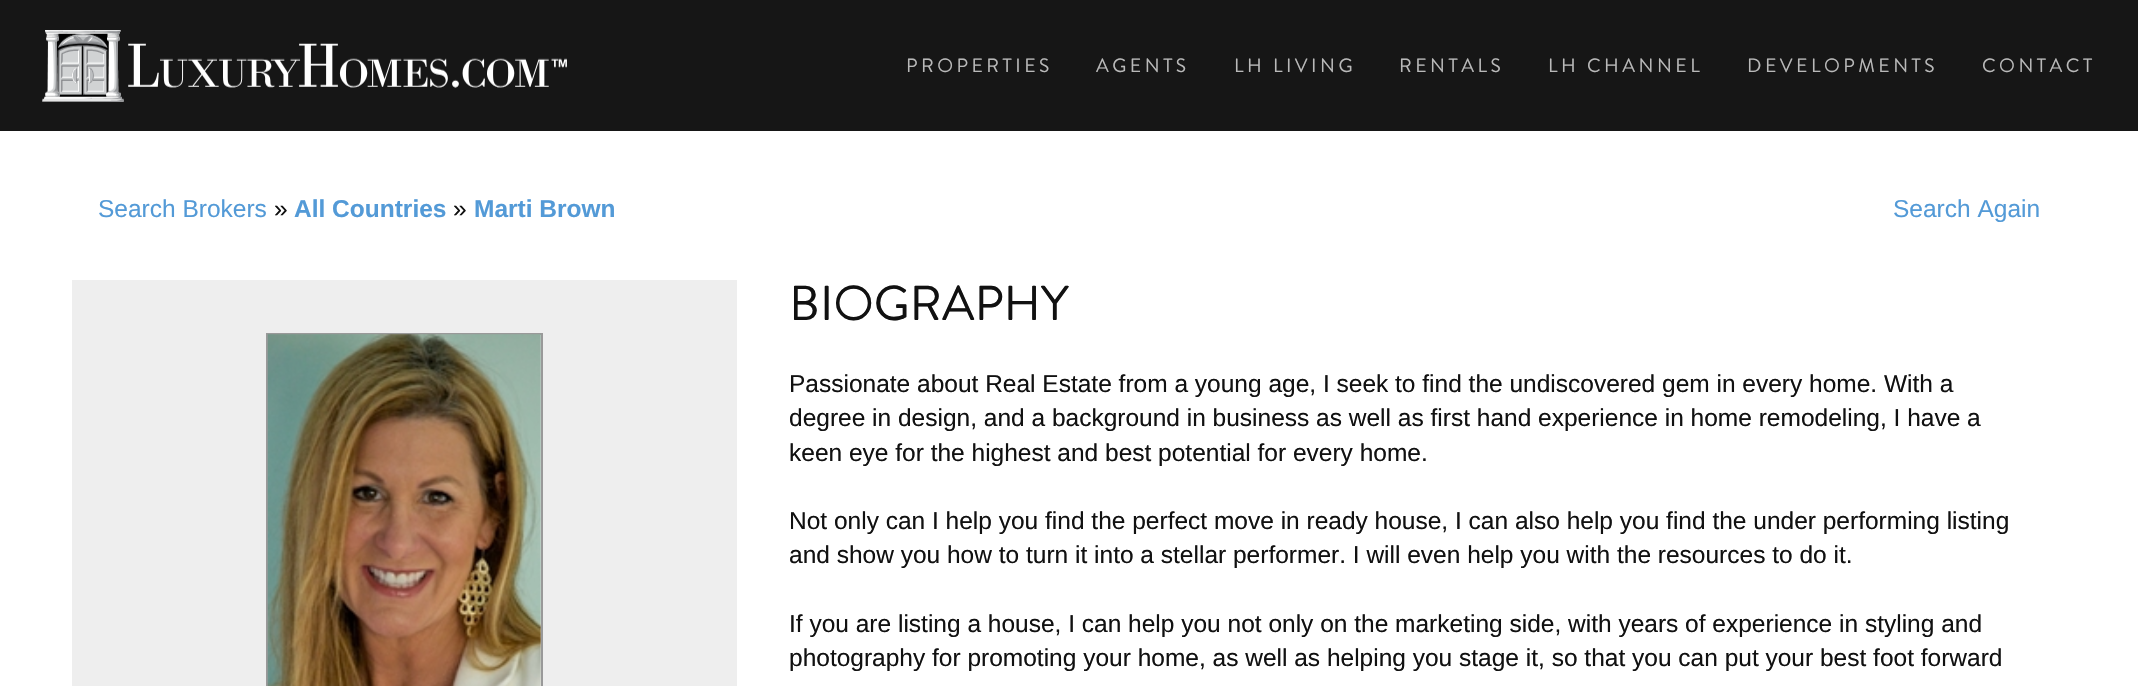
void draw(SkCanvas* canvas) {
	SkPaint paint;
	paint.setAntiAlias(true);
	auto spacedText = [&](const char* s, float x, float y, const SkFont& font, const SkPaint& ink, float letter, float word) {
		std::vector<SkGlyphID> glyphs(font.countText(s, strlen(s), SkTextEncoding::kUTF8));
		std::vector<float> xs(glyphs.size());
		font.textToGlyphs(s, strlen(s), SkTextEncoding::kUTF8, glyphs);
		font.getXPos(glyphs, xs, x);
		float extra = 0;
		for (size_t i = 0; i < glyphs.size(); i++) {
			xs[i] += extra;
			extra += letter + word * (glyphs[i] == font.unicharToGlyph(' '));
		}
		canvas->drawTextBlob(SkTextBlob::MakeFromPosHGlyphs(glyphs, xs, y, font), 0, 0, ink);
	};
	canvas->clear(0xffffffff);
	paint.setColor(0xff161616);
	canvas->drawRect(SkRect::MakeXYWH(0, 0, 2138, 131), paint);
	canvas->drawImageRect(SkImages::DeferredFromEncodedData(SkData::MakeFromFileName("img1.png")), SkRect::MakeXYWH(42, 30, 525, 72), SkSamplingOptions());
	SkFont f1(fontMgr->matchFamilyStyle("Brandon Grotesque", SkFontStyle::Normal()), 19.25);
	f1.setSubpixel(true);
	paint.setColor(0xffb9b9b9);
	spacedText("PROPERTIES", 906, 72, f1, paint, 3.5, 0);
	spacedText("AGENTS", 1096, 72, f1, paint, 3.5, 0);
	spacedText("LH LIVING", 1234, 72, f1, paint, 3.5, 0);
	spacedText("RENTALS", 1399, 72, f1, paint, 3.5, 0);
	spacedText("LH CHANNEL", 1548, 72, f1, paint, 3.5, 0);
	spacedText("DEVELOPMENTS", 1747, 72, f1, paint, 3.5, 0);
	spacedText("CONTACT", 1982, 72, f1, paint, 3.5, 0);
	SkFont f2(fontMgr->matchFamilyStyle("Liberation Sans", SkFontStyle::Normal()), 24.5);
	f2.setSubpixel(true);
	paint.setColor(0xff539ad7);
	canvas->drawString("Search Brokers", 98, 217, f2, paint);
	paint.setColor(0xff111111);
	canvas->drawString("»", 274, 217, f2, paint);
	SkFont f3(fontMgr->matchFamilyStyle("Liberation Sans", SkFontStyle::Bold()), 24.5);
	f3.setSubpixel(true);
	paint.setColor(0xff539ad7);
	canvas->drawString("All Countries", 294, 217, f3, paint);
	paint.setColor(0xff111111);
	canvas->drawString("»", 453, 217, f2, paint);
	paint.setColor(0xff539ad7);
	canvas->drawString("Marti Brown", 474, 217, f3, paint);
	canvas->drawString("Search Again", 1893, 217, f2, paint);
	paint.setColor(0xffeeeeee);
	canvas->drawRect(SkRect::MakeXYWH(72, 280, 665, 406), paint);
	paint.setStroke(true);
	paint.setStrokeWidth(2);
	paint.setColor(0xff999999);
	canvas->drawRect(SkRect::MakeXYWH(267, 334, 275, 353), paint);
	canvas->drawImageRect(SkImages::DeferredFromEncodedData(SkData::MakeFromFileName("img2.png")), SkRect::MakeXYWH(267, 334, 274, 352), SkSamplingOptions());
	SkFont f4(fontMgr->matchFamilyStyle("Brandon Grotesque", SkFontStyle::Normal()), 49);
	f4.setSubpixel(true);
	paint.setStroke(false);
	paint.setColor(0xff111111);
	canvas->drawString("BIOGRAPHY", 789, 320, f4, paint);
	canvas->drawString("Passionate about Real Estate from a young age, I seek to find the undiscovered gem in every home. With a", 789, 392, f2, paint);
	canvas->drawString("degree in design, and a background in business as well as first hand experience in home remodeling, I have a", 789, 426, f2, paint);
	canvas->drawString("keen eye for the highest and best potential for every home.", 789, 461, f2, paint);
	canvas->drawString("Not only can I help you find the perfect move in ready house, I can also help you find the under performing listing", 789, 529, f2, paint);
	canvas->drawString("and show you how to turn it into a stellar performer. I will even help you with the resources to do it.", 789, 563, f2, paint);
	canvas->drawString("If you are listing a house, I can help you not only on the marketing side, with years of experience in styling and", 789, 632, f2, paint);
	canvas->drawString("photography for promoting your home, as well as helping you stage it, so that you can put your best foot forward", 789, 666, f2, paint);
}
